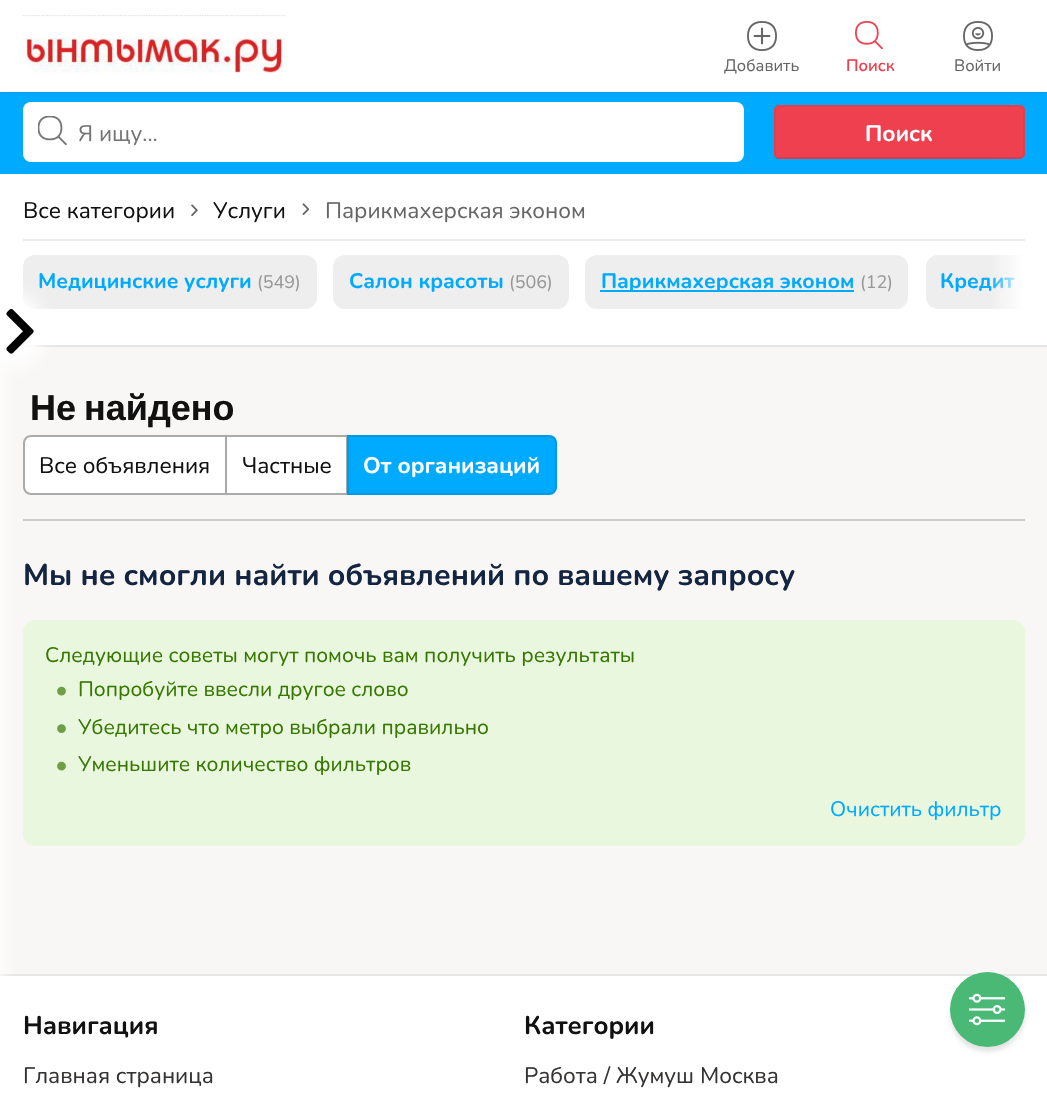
void draw(SkCanvas* canvas) {
	SkPaint paint;
	paint.setAntiAlias(true);
	auto spacedText = [&](const char* s, float x, float y, const SkFont& font, const SkPaint& ink, float letter, float word) {
		std::vector<SkGlyphID> glyphs(font.countText(s, strlen(s), SkTextEncoding::kUTF8));
		std::vector<float> xs(glyphs.size());
		font.textToGlyphs(s, strlen(s), SkTextEncoding::kUTF8, glyphs);
		font.getXPos(glyphs, xs, x);
		float extra = 0;
		for (size_t i = 0; i < glyphs.size(); i++) {
			xs[i] += extra;
			extra += letter + word * (glyphs[i] == font.unicharToGlyph(' '));
		}
		canvas->drawTextBlob(SkTextBlob::MakeFromPosHGlyphs(glyphs, xs, y, font), 0, 0, ink);
	};
	auto svgPath = [&](const char* data, bool evenOdd = false) {
		SkPath result = *SkParsePath::FromSVGString(data);
		if (evenOdd) result.setFillType(SkPathFillType::kEvenOdd);
		return result;
	};
	canvas->clear(0xfff9f7f6);
	paint.setColor(0xffffffff);
	canvas->drawRect(SkRect::MakeXYWH(0, 174, 1047, 171), paint);
	paint.setColor(0xffe6e6e6);
	canvas->drawRect(SkRect::MakeXYWH(0, 345, 1047, 2), paint);
	paint.setColor(0xffebebeb);
	canvas->drawRect(SkRect::MakeXYWH(23, 239, 1002, 2), paint);
	paint.setColor(0xffeeeeee);
	canvas->drawRoundRect(SkRect::MakeXYWH(23, 255, 294, 54), 12, 12, paint);
	paint.setColor(0xffcccccc);
	canvas->drawRect(SkRect::MakeXYWH(23, 519, 1002, 2), paint);
	paint.setColor(0xffffffff);
	canvas->drawPath(svgPath("M31 436H226V494H31C27 494 24 491 24 487V443C24 439 27 436 31 436Z"), paint);
	paint.setStroke(true);
	paint.setStrokeWidth(2);
	paint.setColor(0xffaaaaaa);
	canvas->drawPath(svgPath("M31 436H226V494H31C27 494 24 491 24 487V443C24 439 27 436 31 436Z"), paint);
	paint.setStroke(false);
	paint.setColor(0xffe9f7df);
	canvas->drawRoundRect(SkRect::MakeXYWH(23, 620, 1002, 226), 12, 12, paint);
	paint.setColor(0xffffffff);
	canvas->drawRect(SkRect::MakeXYWH(0, 976, 1047, 123), paint);
	paint.setColor(0xffe6e6e6);
	canvas->drawRect(SkRect::MakeXYWH(0, 974, 1047, 2), paint);
	paint.setColor(0xe6ffffff);
	paint.setMaskFilter(SkMaskFilter::MakeBlur(kNormal_SkBlurStyle, 7.5));
	canvas->drawRect(SkRect::MakeXYWH(-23, -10, 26, 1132), paint);
	paint.setMaskFilter(nullptr);
	paint.setColor(0xff00aaff);
	canvas->drawRect(SkRect::MakeXYWH(0, 92, 1047, 82), paint);
	paint.setColor(0x40363433);
	paint.setMaskFilter(SkMaskFilter::MakeBlur(kNormal_SkBlurStyle, 1.5));
	canvas->drawRect(SkRect::MakeXYWH(0, 0, 1047, 92), paint);
	paint.setMaskFilter(nullptr);
	paint.setColor(0xffffffff);
	canvas->drawRect(SkRect::MakeXYWH(0, 0, 1047, 92), paint);
	canvas->drawImageRect(SkImages::DeferredFromEncodedData(SkData::MakeFromFileName("img1.png")), SkRect::MakeXYWH(22, 15, 265, 58), SkSamplingOptions());
	canvas->drawImageRect(SkImages::DeferredFromEncodedData(SkData::MakeFromFileName("img2.png")), SkRect::MakeXYWH(747, 21, 30, 30), SkSamplingOptions());
	SkFont f1(fontMgr->matchFamilyStyle("Nunito", SkFontStyle::Normal()), 16.5);
	f1.setSubpixel(true);
	paint.setColor(0xff666666);
	canvas->drawString("Добавить", 724, 71, f1, paint);
	canvas->drawImageRect(SkImages::DeferredFromEncodedData(SkData::MakeFromFileName("img3.png")), SkRect::MakeXYWH(855, 21, 29, 29), SkSamplingOptions());
	SkFont f2(fontMgr->matchFamilyStyle("Nunito", SkFontStyle(600, SkFontStyle::kNormal_Width, SkFontStyle::kUpright_Slant)), 16.5);
	f2.setSubpixel(true);
	paint.setColor(0xffef404f);
	canvas->drawString("Поиск", 846, 71, f2, paint);
	canvas->drawImageRect(SkImages::DeferredFromEncodedData(SkData::MakeFromFileName("img4.png")), SkRect::MakeXYWH(963, 21, 30, 30), SkSamplingOptions());
	paint.setColor(0xff666666);
	canvas->drawString("Войти", 954, 71, f1, paint);
	paint.setColor(0xffffffff);
	canvas->drawRoundRect(SkRect::MakeXYWH(23, 102, 721, 60), 8, 8, paint);
	canvas->drawImageRect(SkImages::DeferredFromEncodedData(SkData::MakeFromFileName("img5.png")), SkRect::MakeXYWH(38, 116, 29, 30), SkSamplingOptions());
	SkFont f3(fontMgr->matchFamilyStyle("Nunito", SkFontStyle::Normal()), 22.5);
	f3.setSubpixel(true);
	paint.setColor(0xff757575);
	canvas->drawString("Я ищу...", 78, 141, f3, paint);
	paint.setColor(0xffef404f);
	canvas->drawRoundRect(SkRect::MakeXYWH(774, 105, 251, 54), 5, 5, paint);
	paint.setStroke(true);
	paint.setStrokeWidth(1.5);
	paint.setColor(0x1a000000);
	canvas->drawPath(svgPath("M1022.5 157C1022 158 1021 158 1020 158H778.5C777.5 158 776.5 158 776 157"), paint);
	paint.setColor(0x0d000000);
	canvas->drawPath(svgPath("M776 157C775 156.5 775 155.5 775 154.5V109.5C775 108.5 775 107.5 776 107C776.5 106 777.5 106 778.5 106H1020C1021 106 1022 106 1022.5 107C1023.5 107.5 1024 108.5 1024 109.5V154.5C1024 155.5 1023.5 156.5 1022.5 157"), paint);
	SkFont f4(fontMgr->matchFamilyStyle("Nunito", SkFontStyle::Bold()), 22.5);
	f4.setSubpixel(true);
	paint.setStroke(false);
	paint.setColor(0xffffffff);
	canvas->drawString("Поиск", 865, 141, f4, paint);
	paint.setColor(0xff111111);
	canvas->drawString("Все категории", 23, 218, f3, paint);
	canvas->drawImageRect(SkImages::DeferredFromEncodedData(SkData::MakeFromFileName("img6.png")), SkRect::MakeXYWH(191, 204, 7, 13), SkSamplingOptions());
	canvas->drawString("Услуги", 213, 218, f3, paint);
	canvas->drawImageRect(SkImages::DeferredFromEncodedData(SkData::MakeFromFileName("img7.png")), SkRect::MakeXYWH(302, 203, 8, 12), SkSamplingOptions());
	paint.setColor(0xff666666);
	canvas->drawString("Парикмахерская эконом", 325, 218, f3, paint);
	paint.setColor(0xffeeeeee);
	canvas->drawPath(svgPath("M938 255H1025V309H938C931.5 309 926 303.5 926 297V267C926 260.5 931.5 255 938 255Z"), paint);
	SkFont f5(fontMgr->matchFamilyStyle("Nunito", SkFontStyle::Bold()), 21);
	f5.setSubpixel(true);
	paint.setColor(0xff00aaff);
	canvas->drawString("Кредит", 940, 288, f5, paint);
	{
		const SkColor colors[] = {0x00ffffff, 0xffffffff};
		const float stops[] = {0, 1};
		const SkPoint ends[] = {{989, 289}, {1025, 289}};
		paint.setShader(SkGradientShader::MakeLinear(ends, colors, stops, 2, SkTileMode::kClamp));
		paint.setAlpha(255);
	}
	canvas->drawRect(SkRect::MakeXYWH(990, 255, 35, 54), paint);
	paint.setShader(nullptr);
	paint.setColor(0xff00aaff);
	canvas->drawString("Медицинские услуги", 38, 288, f5, paint);
	SkFont f6(fontMgr->matchFamilyStyle("Nunito", SkFontStyle::Normal()), 18);
	f6.setSubpixel(true);
	paint.setColor(0xff999999);
	canvas->drawString("(549)", 257, 288, f6, paint);
	paint.setColor(0xffeeeeee);
	canvas->drawRoundRect(SkRect::MakeXYWH(333, 255, 236, 54), 12, 12, paint);
	paint.setColor(0xff00aaff);
	canvas->drawString("Салон красоты", 349, 288, f5, paint);
	paint.setColor(0xff999999);
	canvas->drawString("(506)", 509, 288, f6, paint);
	paint.setColor(0xffeeeeee);
	canvas->drawRoundRect(SkRect::MakeXYWH(585, 255, 323, 54), 12, 12, paint);
	paint.setColor(0xff00aaff);
	canvas->drawRect(SkRect::MakeXYWH(600, 290, 254, 2), paint);
	canvas->drawString("Парикмахерская эконом", 601, 288, f5, paint);
	paint.setColor(0xff999999);
	canvas->drawString("(12)", 860, 288, f6, paint);
	SkFont f7(fontMgr->matchFamilyStyle("Liberation Sans", SkFontStyle::Bold()), 36);
	f7.setSubpixel(true);
	paint.setColor(0xff111111);
	spacedText("Не найдено", 30, 420, f7, paint, 0, -2);
	canvas->drawString("Все объявления", 39, 473, f3, paint);
	paint.setColor(0xffffffff);
	canvas->drawRect(SkRect::MakeXYWH(226, 436, 121, 58), paint);
	paint.setStroke(true);
	paint.setStrokeWidth(2);
	paint.setColor(0xffaaaaaa);
	canvas->drawRect(SkRect::MakeXYWH(226, 436, 121, 58), paint);
	paint.setStroke(false);
	paint.setColor(0xff111111);
	canvas->drawString("Частные", 242, 473, f3, paint);
	paint.setColor(0xff00aaff);
	canvas->drawPath(svgPath("M347 435H549C553.5 435 557 438.5 557 443V487C557 491.5 553.5 495 549 495H347Z"), paint);
	paint.setStroke(true);
	paint.setColor(0x1a000000);
	canvas->drawPath(svgPath("M348 436H549C553 436 556 439 556 443V487C556 491 553 494 549 494H348Z"), paint);
	paint.setStroke(false);
	paint.setColor(0xffffffff);
	canvas->drawString("От организаций", 363, 473, f4, paint);
	SkFont f8(fontMgr->matchFamilyStyle("Nunito", SkFontStyle::Bold()), 30);
	f8.setSubpixel(true);
	paint.setColor(0xff142542);
	canvas->drawString("Мы не смогли найти объявлений по вашему запросу", 23, 585, f8, paint);
	SkFont f9(fontMgr->matchFamilyStyle("Nunito", SkFontStyle::Normal()), 21);
	f9.setSubpixel(true);
	paint.setColor(0xff377800);
	canvas->drawString("Следующие советы могут помочь вам получить результаты", 45, 662, f9, paint);
	canvas->drawImageRect(SkImages::DeferredFromEncodedData(SkData::MakeFromFileName("img8.png")), SkRect::MakeXYWH(57, 686, 9, 10), SkSamplingOptions());
	canvas->drawString("Попробуйте ввесли другое слово", 78, 696, f9, paint);
	canvas->drawImageRect(SkImages::DeferredFromEncodedData(SkData::MakeFromFileName("img9.png")), SkRect::MakeXYWH(57, 724, 9, 9), SkSamplingOptions());
	canvas->drawString("Убедитесь что метро выбрали правильно", 78, 734, f9, paint);
	canvas->drawImageRect(SkImages::DeferredFromEncodedData(SkData::MakeFromFileName("img8.png")), SkRect::MakeXYWH(57, 761, 9, 10), SkSamplingOptions());
	canvas->drawString("Уменьшите количество фильтров", 78, 771, f9, paint);
	paint.setColor(0xff00aaff);
	canvas->drawString("Очистить фильтр", 830, 816, f9, paint);
	paint.setColor(0x1a000000);
	paint.setMaskFilter(SkMaskFilter::MakeBlur(kNormal_SkBlurStyle, 2));
	canvas->drawRoundRect(SkRect::MakeXYWH(950, 977, 75, 75), 37.5, 37.5, paint);
	paint.setMaskFilter(nullptr);
	paint.setColor(0xff49b975);
	canvas->drawCircle(987.5, 1009.5, 37.5, paint);
	canvas->drawImageRect(SkImages::DeferredFromEncodedData(SkData::MakeFromFileName("img10.png")), SkRect::MakeXYWH(969, 993, 36, 33), SkSamplingOptions());
	paint.setColor(0xe6ffffff);
	paint.setMaskFilter(SkMaskFilter::MakeBlur(kNormal_SkBlurStyle, 7.5));
	canvas->drawRoundRect(SkRect::MakeXYWH(-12, 293, 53, 75), 38, 38, paint);
	paint.setMaskFilter(nullptr);
	canvas->drawImageRect(SkImages::DeferredFromEncodedData(SkData::MakeFromFileName("img11.png")), SkRect::MakeXYWH(6, 309, 28, 45), SkSamplingOptions());
	SkFont f10(fontMgr->matchFamilyStyle("Nunito", SkFontStyle::Bold()), 25.5);
	f10.setSubpixel(true);
	paint.setColor(0xff111111);
	canvas->drawString("Навигация", 23, 1034, f10, paint);
	paint.setColor(0xff363433);
	canvas->drawString("Главная страница", 23, 1083, f3, paint);
	paint.setColor(0xff111111);
	canvas->drawString("Категории", 524, 1034, f10, paint);
	paint.setColor(0xff363433);
	canvas->drawString("Работа / Жумуш Москва", 524, 1083, f3, paint);
}
